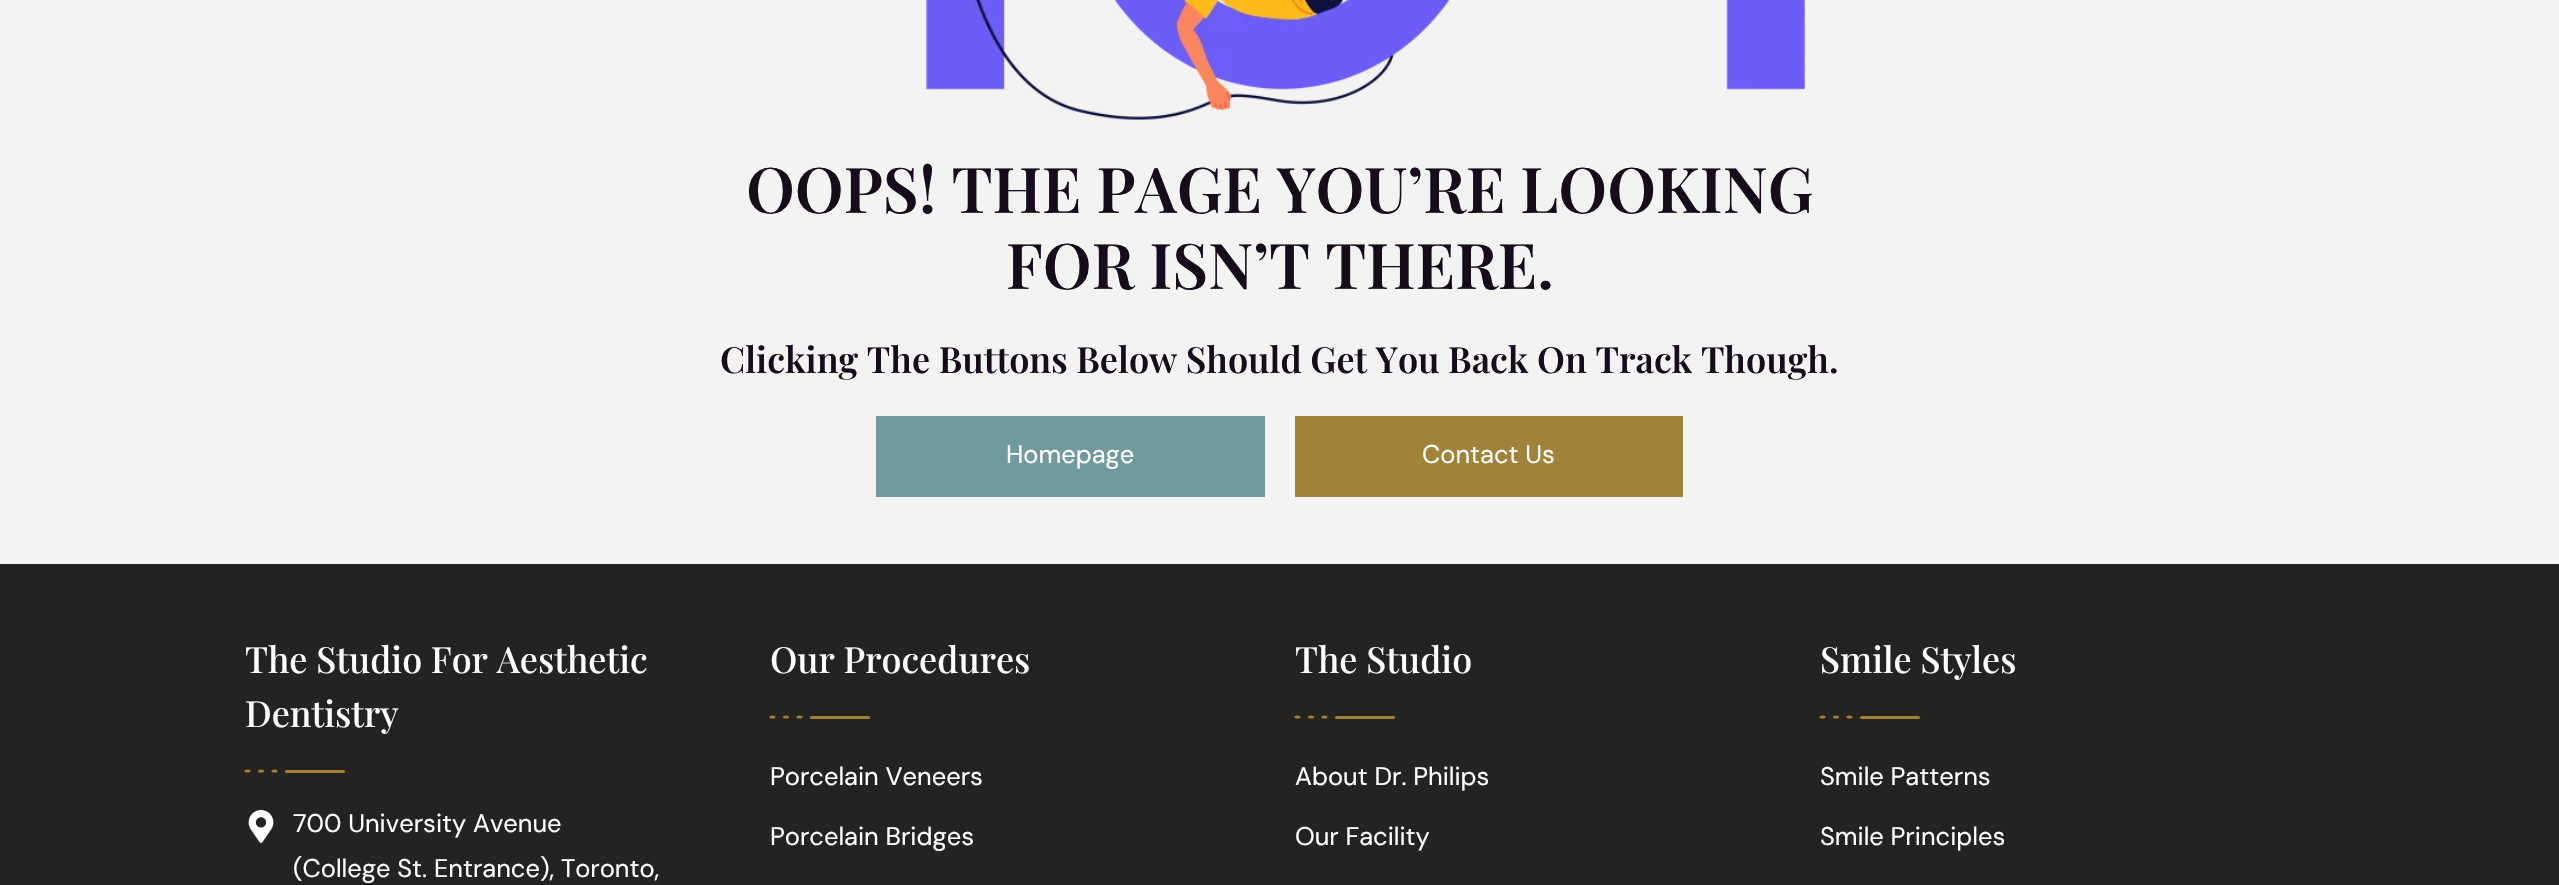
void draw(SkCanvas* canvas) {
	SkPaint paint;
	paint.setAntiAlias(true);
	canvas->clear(0xfff3f3f3);
	canvas->drawImageRect(SkImages::DeferredFromEncodedData(SkData::MakeFromFileName("img1.png")), SkRect::MakeXYWH(926, 0, 879, 120), SkSamplingOptions());
	SkFont f1(fontMgr->matchFamilyStyle("Playfair Display", SkFontStyle(600, SkFontStyle::kNormal_Width, SkFontStyle::kUpright_Slant)), 63);
	f1.setSubpixel(true);
	paint.setColor(0xff160c1c);
	canvas->drawString("OOPS! THE PAGE YOU’RE LOOKING", 746, 213, f1, paint);
	canvas->drawString("FOR ISN’T THERE.", 1006, 289, f1, paint);
	SkFont f2(fontMgr->matchFamilyStyle("Playfair Display", SkFontStyle(600, SkFontStyle::kNormal_Width, SkFontStyle::kUpright_Slant)), 36);
	f2.setSubpixel(true);
	canvas->drawString("Clicking The Buttons Below Should Get You Back On Track Though.", 720, 373, f2, paint);
	paint.setColor(0xff719a9e);
	canvas->drawRect(SkRect::MakeXYWH(876, 416, 389, 81), paint);
	SkFont f3(fontMgr->matchFamilyStyle("DM Sans", SkFontStyle::Normal()), 25.5);
	f3.setSubpixel(true);
	paint.setColor(0xffffffff);
	canvas->drawString("Homepage", 1006, 463, f3, paint);
	paint.setColor(0xffa08238);
	canvas->drawRect(SkRect::MakeXYWH(1295, 416, 388, 81), paint);
	paint.setColor(0xffffffff);
	canvas->drawString("Contact Us", 1422, 463, f3, paint);
	paint.setColor(0xff252321);
	canvas->drawRect(SkRect::MakeXYWH(0, 564, 2559, 321), paint);
	SkFont f4(fontMgr->matchFamilyStyle("Playfair Display", SkFontStyle(500, SkFontStyle::kNormal_Width, SkFontStyle::kUpright_Slant)), 36);
	f4.setSubpixel(true);
	paint.setColor(0xffffffff);
	canvas->drawString("The Studio For Aesthetic", 245, 673, f4, paint);
	canvas->drawString("Dentistry", 245, 727, f4, paint);
	paint.setColor(0xffa08238);
	canvas->drawRoundRect(SkRect::MakeXYWH(285, 770, 60, 3), 1.5, 1.5, paint);
	canvas->drawOval(SkRect::MakeXYWH(271.5, 769.5, 6, 3), paint);
	canvas->drawOval(SkRect::MakeXYWH(258, 769.5, 6, 3), paint);
	canvas->drawOval(SkRect::MakeXYWH(244.5, 769.5, 6, 3), paint);
	canvas->drawImageRect(SkImages::DeferredFromEncodedData(SkData::MakeFromFileName("img2.png")), SkRect::MakeXYWH(248, 810, 26, 33), SkSamplingOptions());
	paint.setColor(0xffffffff);
	canvas->drawString("700 University Avenue", 293, 832, f3, paint);
	canvas->drawString("(College St. Entrance), Toronto,", 293, 877, f3, paint);
	canvas->drawString("Our Procedures", 770, 673, f4, paint);
	paint.setColor(0xffa08238);
	canvas->drawRoundRect(SkRect::MakeXYWH(810, 716, 60, 3), 1.5, 1.5, paint);
	canvas->drawOval(SkRect::MakeXYWH(796.5, 715.5, 6, 3), paint);
	canvas->drawOval(SkRect::MakeXYWH(783, 715.5, 6, 3), paint);
	canvas->drawOval(SkRect::MakeXYWH(769.5, 715.5, 6, 3), paint);
	paint.setColor(0xffffffff);
	canvas->drawString("Porcelain Veneers", 770, 785, f3, paint);
	canvas->drawString("Porcelain Bridges", 770, 845, f3, paint);
	canvas->drawString("The Studio", 1295, 673, f4, paint);
	paint.setColor(0xffa08238);
	canvas->drawRoundRect(SkRect::MakeXYWH(1335, 716, 60, 3), 1.5, 1.5, paint);
	canvas->drawOval(SkRect::MakeXYWH(1321.5, 715.5, 6, 3), paint);
	canvas->drawOval(SkRect::MakeXYWH(1308, 715.5, 6, 3), paint);
	canvas->drawOval(SkRect::MakeXYWH(1294.5, 715.5, 6, 3), paint);
	paint.setColor(0xffffffff);
	canvas->drawString("About Dr. Philips", 1295, 785, f3, paint);
	canvas->drawString("Our Facility", 1295, 845, f3, paint);
	canvas->drawString("Smile Styles", 1820, 673, f4, paint);
	paint.setColor(0xffa08238);
	canvas->drawRoundRect(SkRect::MakeXYWH(1860, 716, 60, 3), 1.5, 1.5, paint);
	canvas->drawOval(SkRect::MakeXYWH(1846.5, 715.5, 6, 3), paint);
	canvas->drawOval(SkRect::MakeXYWH(1833, 715.5, 6, 3), paint);
	canvas->drawOval(SkRect::MakeXYWH(1819.5, 715.5, 6, 3), paint);
	paint.setColor(0xffffffff);
	canvas->drawString("Smile Patterns", 1820, 785, f3, paint);
	canvas->drawString("Smile Principles", 1820, 845, f3, paint);
}
